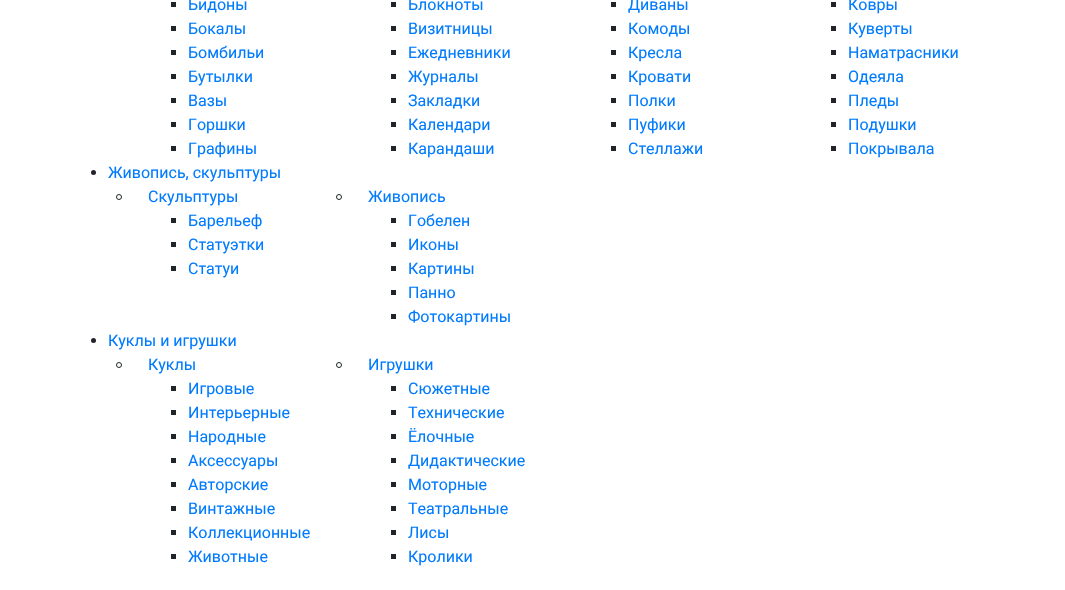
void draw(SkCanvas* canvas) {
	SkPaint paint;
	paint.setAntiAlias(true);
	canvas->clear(0xffffffff);
	paint.setColor(0xff212529);
	canvas->drawRect(SkRect::MakeXYWH(171, 2, 5, 5), paint);
	SkFont f1(fontMgr->matchFamilyStyle("Roboto", SkFontStyle::Normal()), 16);
	f1.setSubpixel(true);
	paint.setColor(0xff007bff);
	canvas->drawString("Бидоны", 188, 10, f1, paint);
	paint.setColor(0xff212529);
	canvas->drawRect(SkRect::MakeXYWH(171, 26, 5, 5), paint);
	paint.setColor(0xff007bff);
	canvas->drawString("Бокалы", 188, 34, f1, paint);
	paint.setColor(0xff212529);
	canvas->drawRect(SkRect::MakeXYWH(171, 50, 5, 5), paint);
	paint.setColor(0xff007bff);
	canvas->drawString("Бомбильи", 188, 58, f1, paint);
	paint.setColor(0xff212529);
	canvas->drawRect(SkRect::MakeXYWH(171, 74, 5, 5), paint);
	paint.setColor(0xff007bff);
	canvas->drawString("Бутылки", 188, 82, f1, paint);
	paint.setColor(0xff212529);
	canvas->drawRect(SkRect::MakeXYWH(171, 98, 5, 5), paint);
	paint.setColor(0xff007bff);
	canvas->drawString("Вазы", 188, 106, f1, paint);
	paint.setColor(0xff212529);
	canvas->drawRect(SkRect::MakeXYWH(171, 122, 5, 5), paint);
	paint.setColor(0xff007bff);
	canvas->drawString("Горшки", 188, 130, f1, paint);
	paint.setColor(0xff212529);
	canvas->drawRect(SkRect::MakeXYWH(171, 146, 5, 5), paint);
	paint.setColor(0xff007bff);
	canvas->drawString("Графины", 188, 154, f1, paint);
	paint.setColor(0xff212529);
	canvas->drawRect(SkRect::MakeXYWH(391, 2, 5, 5), paint);
	paint.setColor(0xff007bff);
	canvas->drawString("Блокноты", 408, 10, f1, paint);
	paint.setColor(0xff212529);
	canvas->drawRect(SkRect::MakeXYWH(391, 26, 5, 5), paint);
	paint.setColor(0xff007bff);
	canvas->drawString("Визитницы", 408, 34, f1, paint);
	paint.setColor(0xff212529);
	canvas->drawRect(SkRect::MakeXYWH(391, 50, 5, 5), paint);
	paint.setColor(0xff007bff);
	canvas->drawString("Ежедневники", 408, 58, f1, paint);
	paint.setColor(0xff212529);
	canvas->drawRect(SkRect::MakeXYWH(391, 74, 5, 5), paint);
	paint.setColor(0xff007bff);
	canvas->drawString("Журналы", 408, 82, f1, paint);
	paint.setColor(0xff212529);
	canvas->drawRect(SkRect::MakeXYWH(391, 98, 5, 5), paint);
	paint.setColor(0xff007bff);
	canvas->drawString("Закладки", 408, 106, f1, paint);
	paint.setColor(0xff212529);
	canvas->drawRect(SkRect::MakeXYWH(391, 122, 5, 5), paint);
	paint.setColor(0xff007bff);
	canvas->drawString("Календари", 408, 130, f1, paint);
	paint.setColor(0xff212529);
	canvas->drawRect(SkRect::MakeXYWH(391, 146, 5, 5), paint);
	paint.setColor(0xff007bff);
	canvas->drawString("Карандаши", 408, 154, f1, paint);
	paint.setColor(0xff212529);
	canvas->drawRect(SkRect::MakeXYWH(611, 2, 5, 5), paint);
	paint.setColor(0xff007bff);
	canvas->drawString("Диваны", 628, 10, f1, paint);
	paint.setColor(0xff212529);
	canvas->drawRect(SkRect::MakeXYWH(611, 26, 5, 5), paint);
	paint.setColor(0xff007bff);
	canvas->drawString("Комоды", 628, 34, f1, paint);
	paint.setColor(0xff212529);
	canvas->drawRect(SkRect::MakeXYWH(611, 50, 5, 5), paint);
	paint.setColor(0xff007bff);
	canvas->drawString("Кресла", 628, 58, f1, paint);
	paint.setColor(0xff212529);
	canvas->drawRect(SkRect::MakeXYWH(611, 74, 5, 5), paint);
	paint.setColor(0xff007bff);
	canvas->drawString("Кровати", 628, 82, f1, paint);
	paint.setColor(0xff212529);
	canvas->drawRect(SkRect::MakeXYWH(611, 98, 5, 5), paint);
	paint.setColor(0xff007bff);
	canvas->drawString("Полки", 628, 106, f1, paint);
	paint.setColor(0xff212529);
	canvas->drawRect(SkRect::MakeXYWH(611, 122, 5, 5), paint);
	paint.setColor(0xff007bff);
	canvas->drawString("Пуфики", 628, 130, f1, paint);
	paint.setColor(0xff212529);
	canvas->drawRect(SkRect::MakeXYWH(611, 146, 5, 5), paint);
	paint.setColor(0xff007bff);
	canvas->drawString("Стеллажи", 628, 154, f1, paint);
	paint.setColor(0xff212529);
	canvas->drawRect(SkRect::MakeXYWH(831, 2, 5, 5), paint);
	paint.setColor(0xff007bff);
	canvas->drawString("Ковры", 848, 10, f1, paint);
	paint.setColor(0xff212529);
	canvas->drawRect(SkRect::MakeXYWH(831, 26, 5, 5), paint);
	paint.setColor(0xff007bff);
	canvas->drawString("Куверты", 848, 34, f1, paint);
	paint.setColor(0xff212529);
	canvas->drawRect(SkRect::MakeXYWH(831, 50, 5, 5), paint);
	paint.setColor(0xff007bff);
	canvas->drawString("Наматрасники", 848, 58, f1, paint);
	paint.setColor(0xff212529);
	canvas->drawRect(SkRect::MakeXYWH(831, 74, 5, 5), paint);
	paint.setColor(0xff007bff);
	canvas->drawString("Одеяла", 848, 82, f1, paint);
	paint.setColor(0xff212529);
	canvas->drawRect(SkRect::MakeXYWH(831, 98, 5, 5), paint);
	paint.setColor(0xff007bff);
	canvas->drawString("Пледы", 848, 106, f1, paint);
	paint.setColor(0xff212529);
	canvas->drawRect(SkRect::MakeXYWH(831, 122, 5, 5), paint);
	paint.setColor(0xff007bff);
	canvas->drawString("Подушки", 848, 130, f1, paint);
	paint.setColor(0xff212529);
	canvas->drawRect(SkRect::MakeXYWH(831, 146, 5, 5), paint);
	paint.setColor(0xff007bff);
	canvas->drawString("Покрывала", 848, 154, f1, paint);
	paint.setColor(0xff212529);
	canvas->drawCircle(93.5, 172.5, 2.5, paint);
	paint.setColor(0xff007bff);
	canvas->drawString("Живопись, скульптуры", 108, 178, f1, paint);
	paint.setStroke(true);
	paint.setStrokeWidth(1);
	paint.setColor(0xff212529);
	canvas->drawCircle(119, 197, 2.5, paint);
	paint.setStroke(false);
	paint.setColor(0xff007bff);
	canvas->drawString("Скульптуры", 148, 202, f1, paint);
	paint.setColor(0xff212529);
	canvas->drawRect(SkRect::MakeXYWH(171, 218, 5, 5), paint);
	paint.setColor(0xff007bff);
	canvas->drawString("Барельеф", 188, 226, f1, paint);
	paint.setColor(0xff212529);
	canvas->drawRect(SkRect::MakeXYWH(171, 242, 5, 5), paint);
	paint.setColor(0xff007bff);
	canvas->drawString("Статуэтки", 188, 250, f1, paint);
	paint.setColor(0xff212529);
	canvas->drawRect(SkRect::MakeXYWH(171, 266, 5, 5), paint);
	paint.setColor(0xff007bff);
	canvas->drawString("Статуи", 188, 274, f1, paint);
	paint.setStroke(true);
	paint.setColor(0xff212529);
	canvas->drawCircle(339, 197, 2.5, paint);
	paint.setStroke(false);
	paint.setColor(0xff007bff);
	canvas->drawString("Живопись", 368, 202, f1, paint);
	paint.setColor(0xff212529);
	canvas->drawRect(SkRect::MakeXYWH(391, 218, 5, 5), paint);
	paint.setColor(0xff007bff);
	canvas->drawString("Гобелен", 408, 226, f1, paint);
	paint.setColor(0xff212529);
	canvas->drawRect(SkRect::MakeXYWH(391, 242, 5, 5), paint);
	paint.setColor(0xff007bff);
	canvas->drawString("Иконы", 408, 250, f1, paint);
	paint.setColor(0xff212529);
	canvas->drawRect(SkRect::MakeXYWH(391, 266, 5, 5), paint);
	paint.setColor(0xff007bff);
	canvas->drawString("Картины", 408, 274, f1, paint);
	paint.setColor(0xff212529);
	canvas->drawRect(SkRect::MakeXYWH(391, 290, 5, 5), paint);
	paint.setColor(0xff007bff);
	canvas->drawString("Панно", 408, 298, f1, paint);
	paint.setColor(0xff212529);
	canvas->drawRect(SkRect::MakeXYWH(391, 314, 5, 5), paint);
	paint.setColor(0xff007bff);
	canvas->drawString("Фотокартины", 408, 322, f1, paint);
	paint.setColor(0xff212529);
	canvas->drawCircle(93.5, 340.5, 2.5, paint);
	paint.setColor(0xff007bff);
	canvas->drawString("Куклы и игрушки", 108, 346, f1, paint);
	paint.setStroke(true);
	paint.setColor(0xff212529);
	canvas->drawCircle(119, 365, 2.5, paint);
	paint.setStroke(false);
	paint.setColor(0xff007bff);
	canvas->drawString("Куклы", 148, 370, f1, paint);
	paint.setColor(0xff212529);
	canvas->drawRect(SkRect::MakeXYWH(171, 386, 5, 5), paint);
	paint.setColor(0xff007bff);
	canvas->drawString("Игровые", 188, 394, f1, paint);
	paint.setColor(0xff212529);
	canvas->drawRect(SkRect::MakeXYWH(171, 410, 5, 5), paint);
	paint.setColor(0xff007bff);
	canvas->drawString("Интерьерные", 188, 418, f1, paint);
	paint.setColor(0xff212529);
	canvas->drawRect(SkRect::MakeXYWH(171, 434, 5, 5), paint);
	paint.setColor(0xff007bff);
	canvas->drawString("Народные", 188, 442, f1, paint);
	paint.setColor(0xff212529);
	canvas->drawRect(SkRect::MakeXYWH(171, 458, 5, 5), paint);
	paint.setColor(0xff007bff);
	canvas->drawString("Аксессуары", 188, 466, f1, paint);
	paint.setColor(0xff212529);
	canvas->drawRect(SkRect::MakeXYWH(171, 482, 5, 5), paint);
	paint.setColor(0xff007bff);
	canvas->drawString("Авторские", 188, 490, f1, paint);
	paint.setColor(0xff212529);
	canvas->drawRect(SkRect::MakeXYWH(171, 506, 5, 5), paint);
	paint.setColor(0xff007bff);
	canvas->drawString("Винтажные", 188, 514, f1, paint);
	paint.setColor(0xff212529);
	canvas->drawRect(SkRect::MakeXYWH(171, 530, 5, 5), paint);
	paint.setColor(0xff007bff);
	canvas->drawString("Коллекционные", 188, 538, f1, paint);
	paint.setColor(0xff212529);
	canvas->drawRect(SkRect::MakeXYWH(171, 554, 5, 5), paint);
	paint.setColor(0xff007bff);
	canvas->drawString("Животные", 188, 562, f1, paint);
	paint.setStroke(true);
	paint.setColor(0xff212529);
	canvas->drawCircle(339, 365, 2.5, paint);
	paint.setStroke(false);
	paint.setColor(0xff007bff);
	canvas->drawString("Игрушки", 368, 370, f1, paint);
	paint.setColor(0xff212529);
	canvas->drawRect(SkRect::MakeXYWH(391, 386, 5, 5), paint);
	paint.setColor(0xff007bff);
	canvas->drawString("Сюжетные", 408, 394, f1, paint);
	paint.setColor(0xff212529);
	canvas->drawRect(SkRect::MakeXYWH(391, 410, 5, 5), paint);
	paint.setColor(0xff007bff);
	canvas->drawString("Технические", 408, 418, f1, paint);
	paint.setColor(0xff212529);
	canvas->drawRect(SkRect::MakeXYWH(391, 434, 5, 5), paint);
	paint.setColor(0xff007bff);
	canvas->drawString("Ёлочные", 408, 442, f1, paint);
	paint.setColor(0xff212529);
	canvas->drawRect(SkRect::MakeXYWH(391, 458, 5, 5), paint);
	paint.setColor(0xff007bff);
	canvas->drawString("Дидактические", 408, 466, f1, paint);
	paint.setColor(0xff212529);
	canvas->drawRect(SkRect::MakeXYWH(391, 482, 5, 5), paint);
	paint.setColor(0xff007bff);
	canvas->drawString("Моторные", 408, 490, f1, paint);
	paint.setColor(0xff212529);
	canvas->drawRect(SkRect::MakeXYWH(391, 506, 5, 5), paint);
	paint.setColor(0xff007bff);
	canvas->drawString("Театральные", 408, 514, f1, paint);
	paint.setColor(0xff212529);
	canvas->drawRect(SkRect::MakeXYWH(391, 530, 5, 5), paint);
	paint.setColor(0xff007bff);
	canvas->drawString("Лисы", 408, 538, f1, paint);
	paint.setColor(0xff212529);
	canvas->drawRect(SkRect::MakeXYWH(391, 554, 5, 5), paint);
	paint.setColor(0xff007bff);
	canvas->drawString("Кролики", 408, 562, f1, paint);
}
